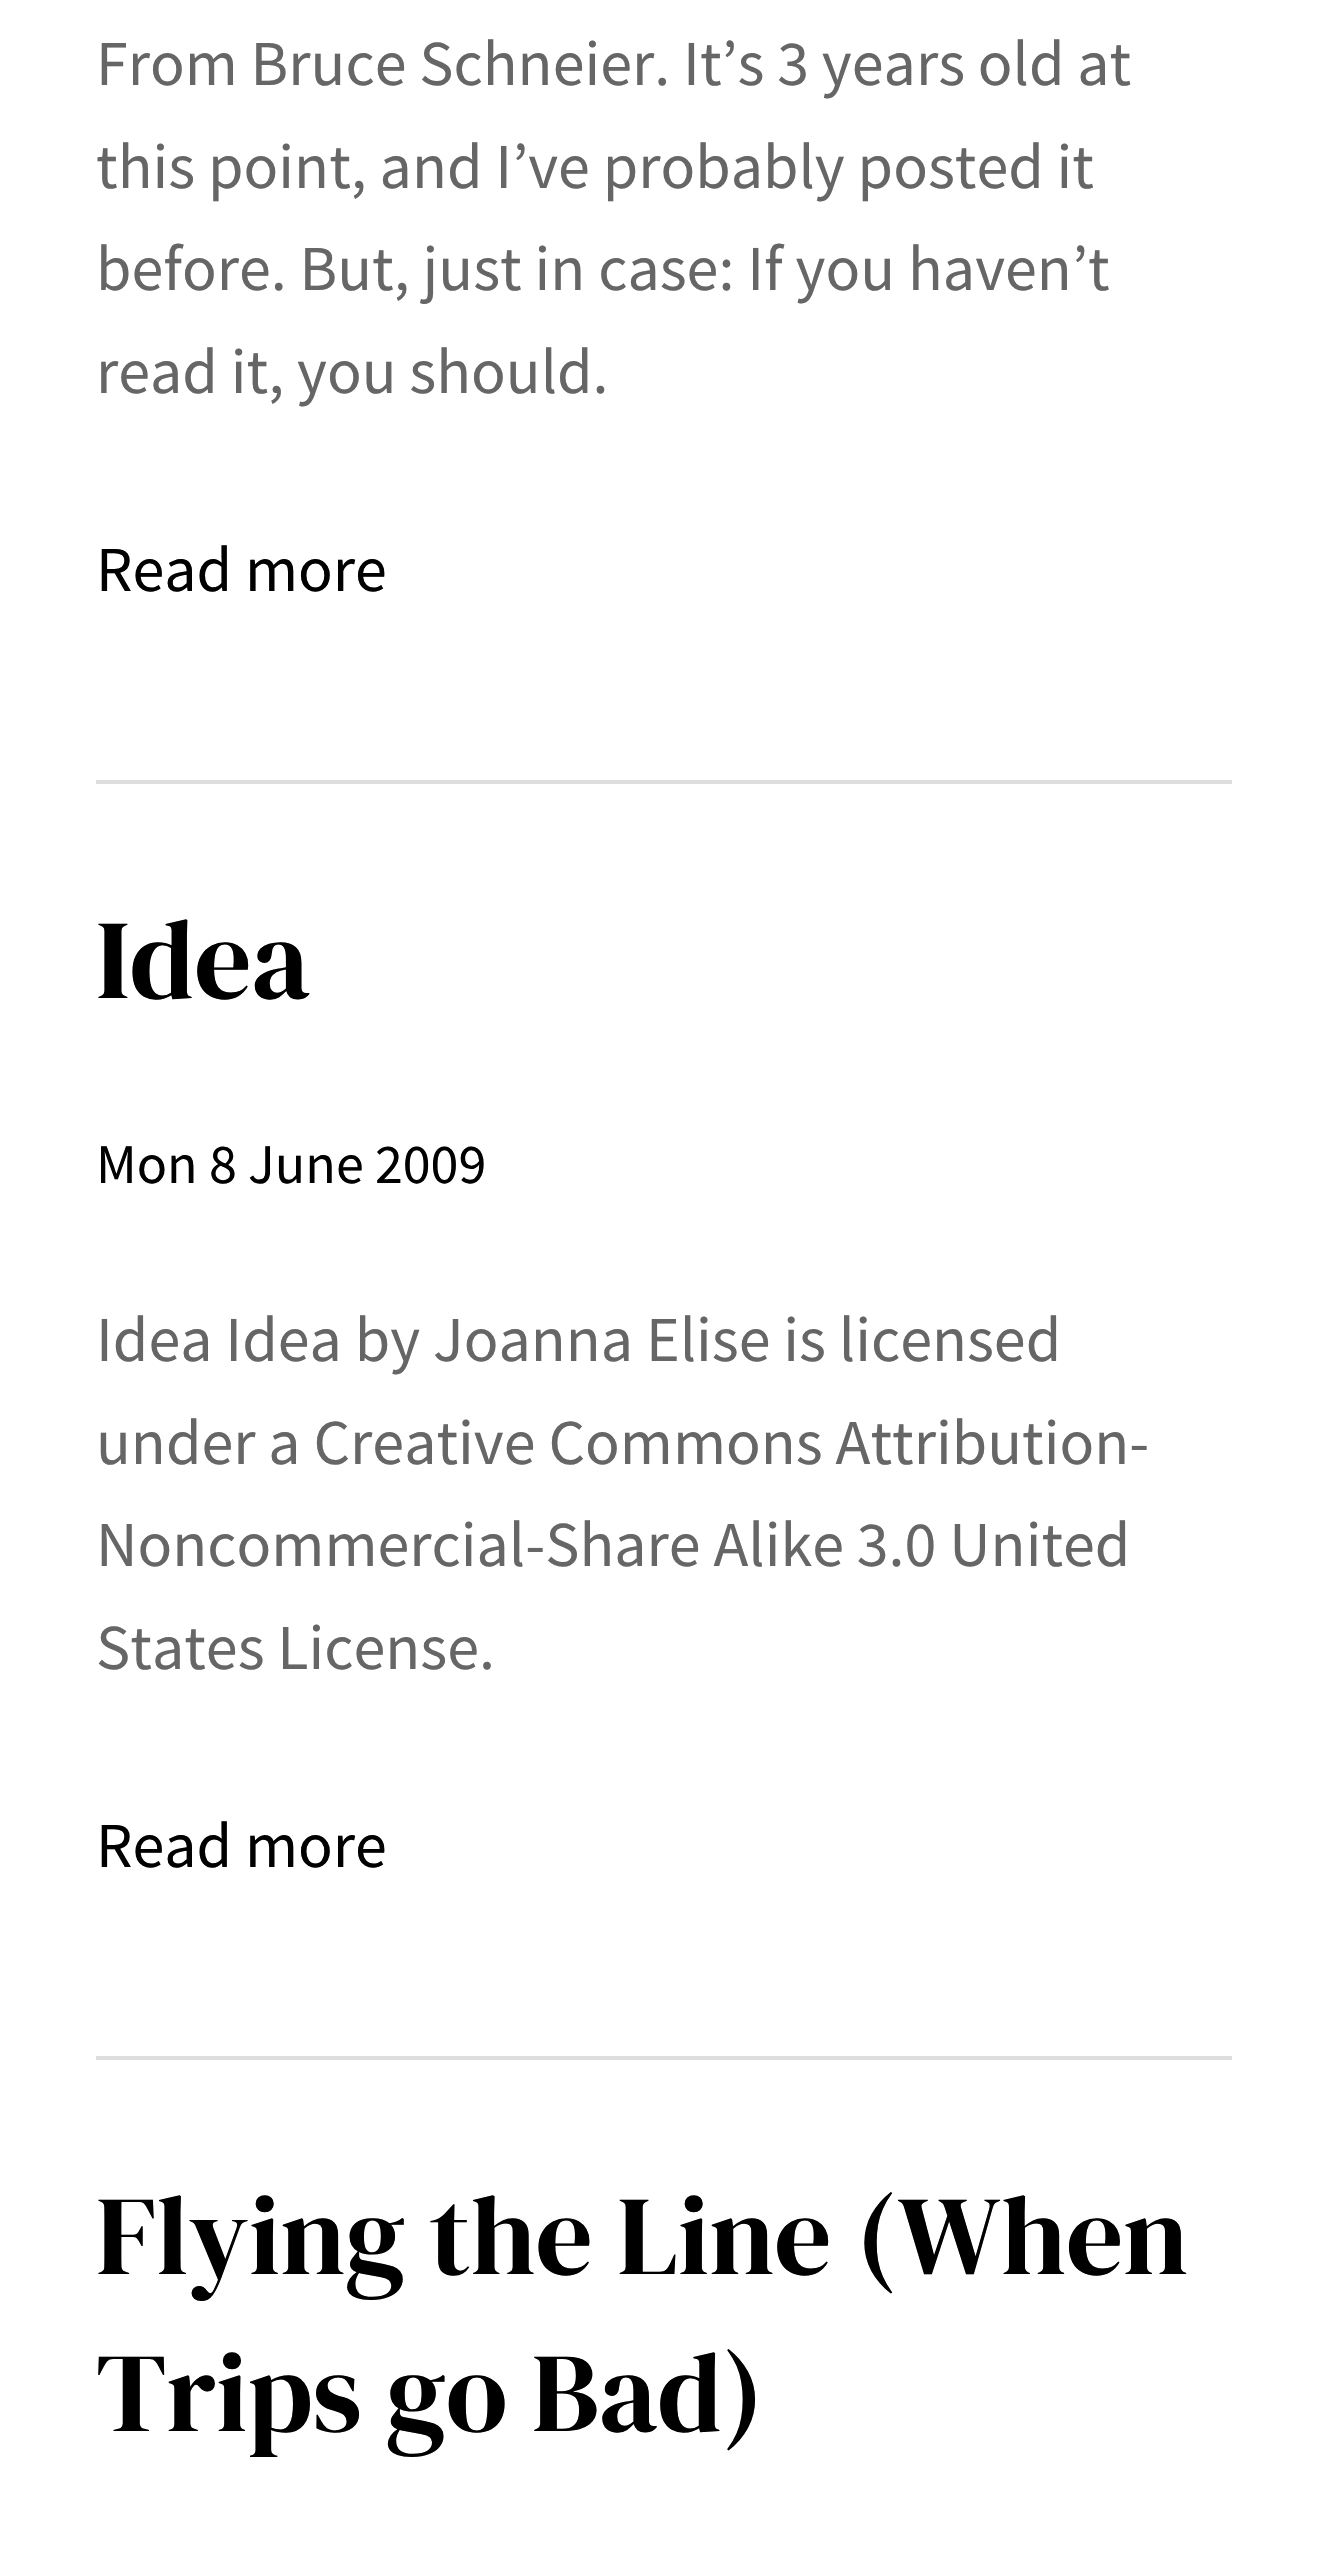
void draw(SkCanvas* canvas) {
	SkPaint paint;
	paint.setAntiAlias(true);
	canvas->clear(0xffffffff);
	paint.setColor(0xffdedede);
	canvas->drawRect(SkRect::MakeXYWH(96, 780, 1136, 4), paint);
	SkFont f1(fontMgr->matchFamilyStyle("Source Sans Pro", SkFontStyle::Normal()), 64.1);
	f1.setSubpixel(true);
	paint.setColor(0xff666666);
	canvas->drawString("From Bruce Schneier. It’s 3 years old at", 96, 85, f1, paint);
	canvas->drawString("this point, and I’ve probably posted it", 96, 188, f1, paint);
	canvas->drawString("before. But, just in case: If you haven’t", 96, 290, f1, paint);
	canvas->drawString("read it, you should.", 96, 393, f1, paint);
	paint.setColor(0xff000000);
	canvas->drawString("Read more", 96, 591, f1, paint);
	paint.setColor(0xffdedede);
	canvas->drawRect(SkRect::MakeXYWH(96, 2056, 1136, 4), paint);
	SkFont f2(fontMgr->matchFamilyStyle("DM Serif Display", SkFontStyle::Normal()), 112.5);
	f2.setSubpixel(true);
	paint.setColor(0xff000000);
	canvas->drawString("Idea", 96, 998, f2, paint);
	SkFont f3(fontMgr->matchFamilyStyle("Source Sans Pro", SkFontStyle::Normal()), 56);
	f3.setSubpixel(true);
	canvas->drawString("Mon 8 June 2009", 96, 1183, f3, paint);
	paint.setColor(0xff666666);
	canvas->drawString("Idea Idea by Joanna Elise is licensed", 96, 1361, f1, paint);
	canvas->drawString("under a Creative Commons Attribution-", 96, 1464, f1, paint);
	canvas->drawString("Noncommercial-Share Alike 3.0 United", 96, 1566, f1, paint);
	canvas->drawString("States License.", 96, 1669, f1, paint);
	paint.setColor(0xff000000);
	canvas->drawString("Read more", 96, 1867, f1, paint);
	canvas->drawString("Flying the Line (When", 96, 2274, f2, paint);
	canvas->drawString("Trips go Bad)", 96, 2431, f2, paint);
}
